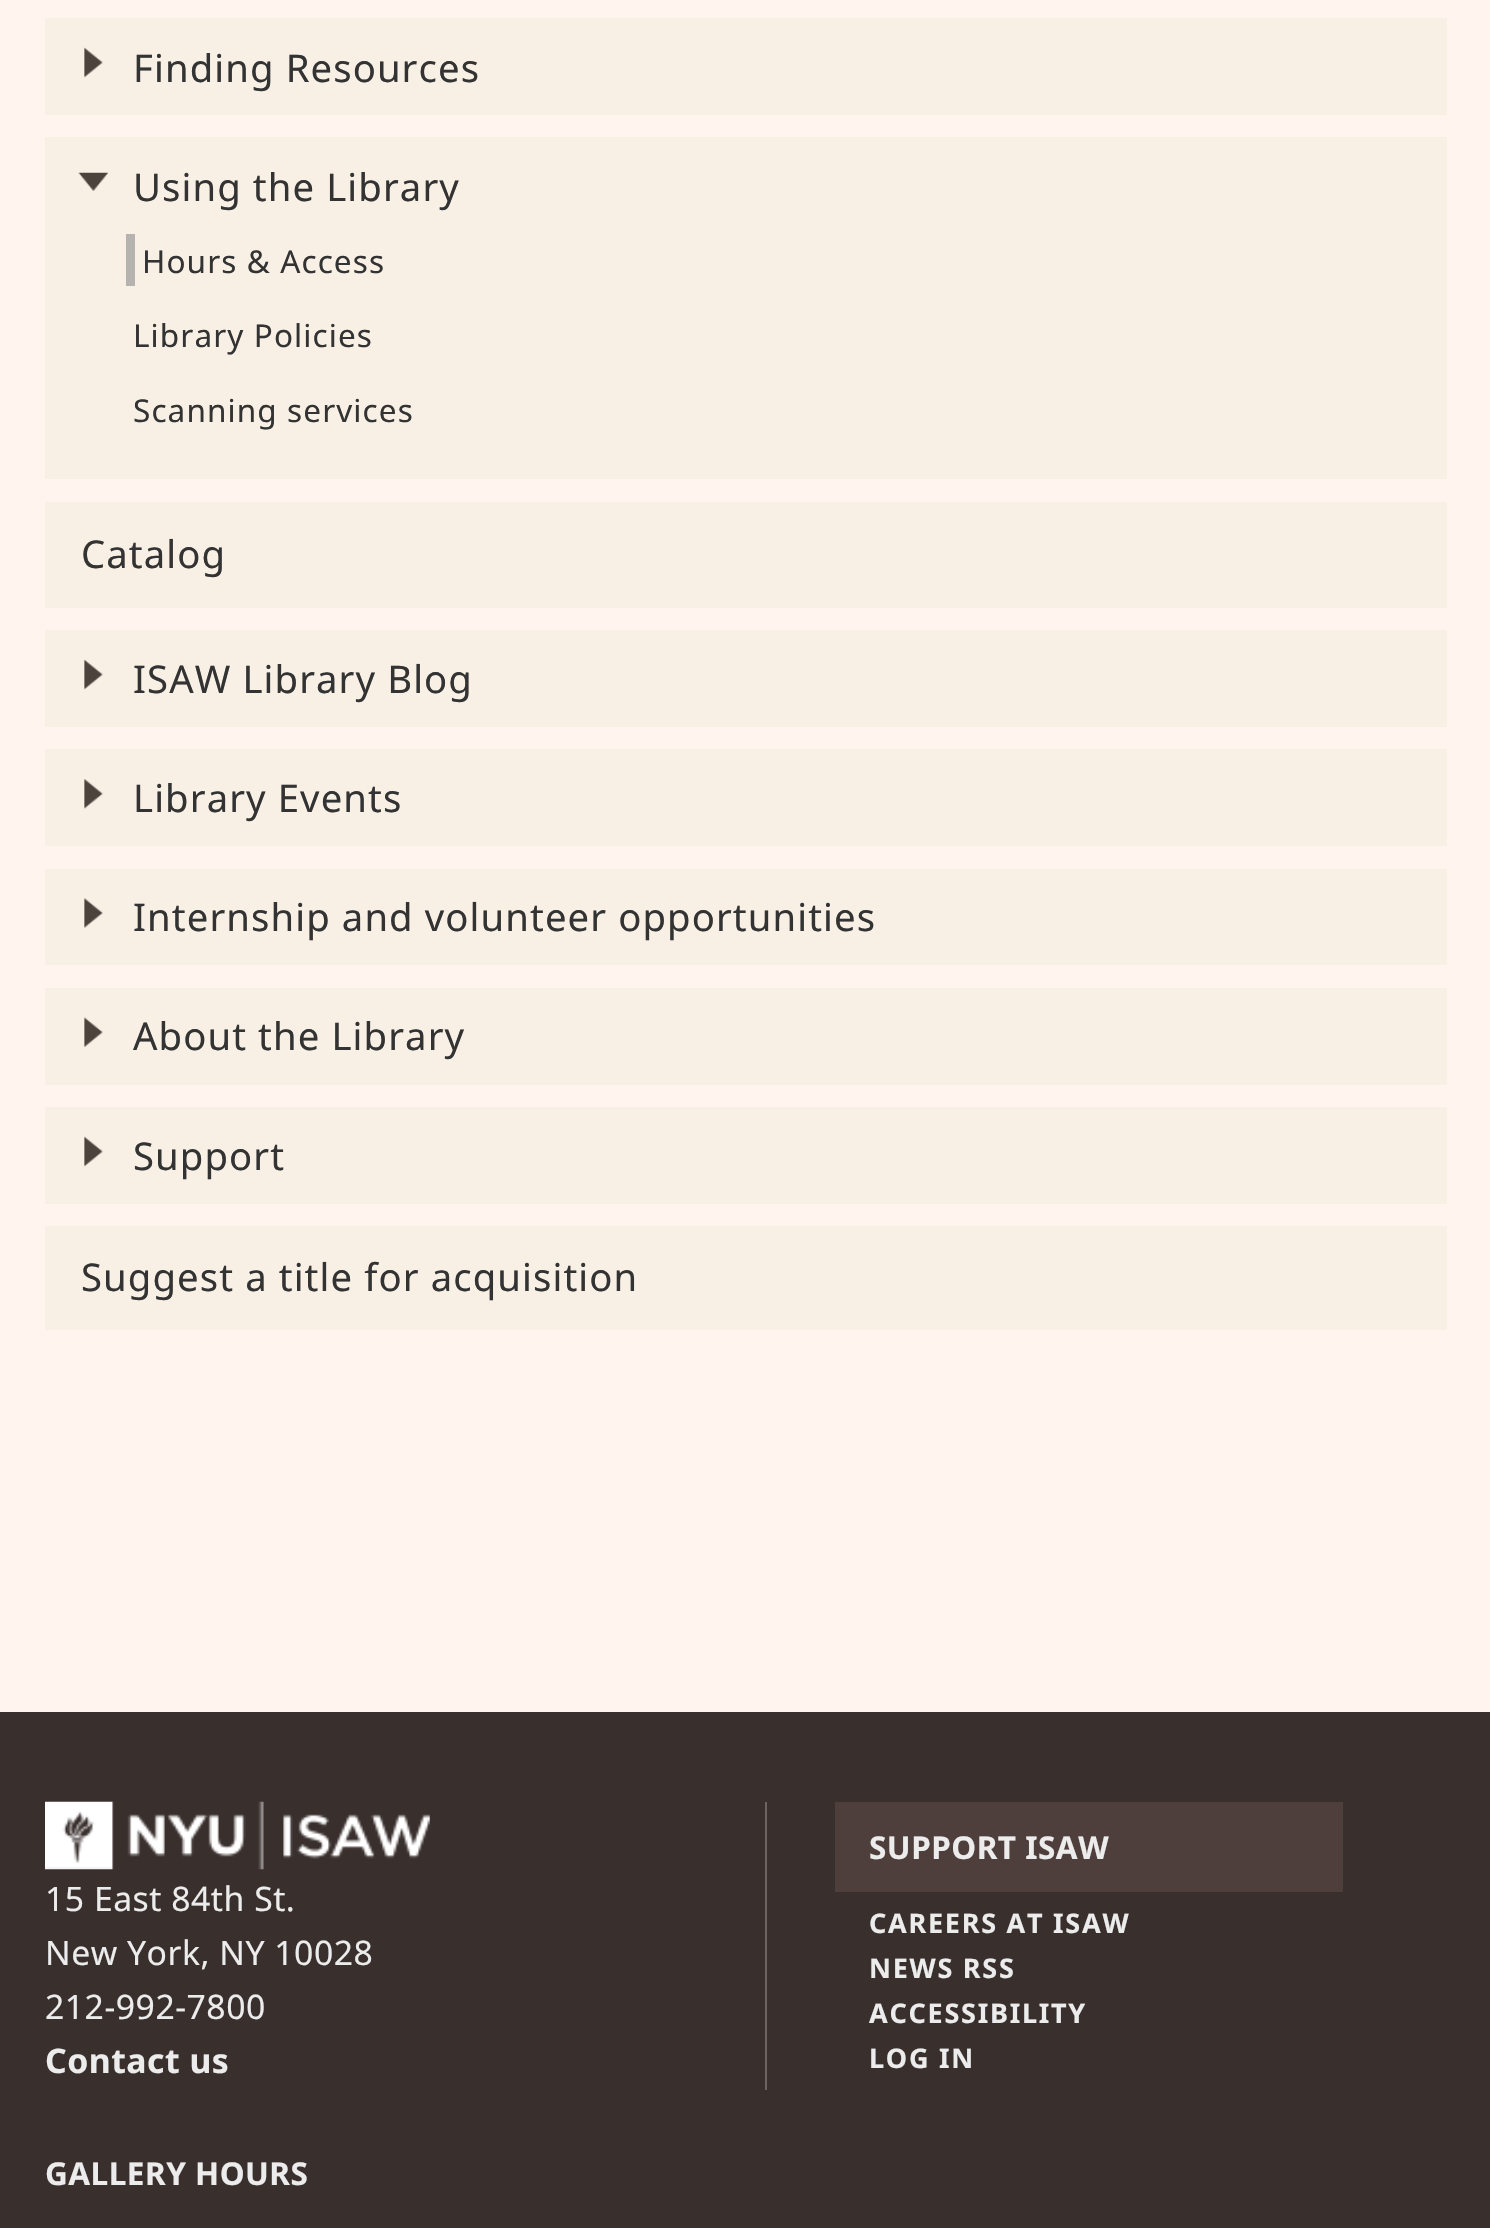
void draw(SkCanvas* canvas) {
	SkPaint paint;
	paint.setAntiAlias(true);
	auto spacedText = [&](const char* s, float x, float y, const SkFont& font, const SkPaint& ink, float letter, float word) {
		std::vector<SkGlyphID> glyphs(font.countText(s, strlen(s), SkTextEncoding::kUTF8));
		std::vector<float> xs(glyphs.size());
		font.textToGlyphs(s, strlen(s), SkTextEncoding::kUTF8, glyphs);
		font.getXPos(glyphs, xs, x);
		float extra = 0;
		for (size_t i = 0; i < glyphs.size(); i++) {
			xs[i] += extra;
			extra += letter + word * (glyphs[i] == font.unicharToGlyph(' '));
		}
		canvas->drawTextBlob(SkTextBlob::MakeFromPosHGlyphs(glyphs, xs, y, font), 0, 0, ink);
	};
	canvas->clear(0xfffff5ee);
	paint.setColor(0xfff8f0e5);
	canvas->drawRect(SkRect::MakeXYWH(45, 18, 1402, 97), paint);
	canvas->drawImageRect(SkImages::DeferredFromEncodedData(SkData::MakeFromFileName("img1.png")), SkRect::MakeXYWH(84, 47, 19, 31), SkSamplingOptions());
	SkFont f1(fontMgr->matchFamilyStyle("Noto Sans", SkFontStyle::Normal()), 38.25);
	f1.setSubpixel(true);
	paint.setColor(0xff333333);
	spacedText("Finding Resources", 133, 82, f1, paint, 1.1, 0);
	paint.setColor(0xfff8f0e5);
	canvas->drawRect(SkRect::MakeXYWH(45, 137, 1402, 342), paint);
	canvas->drawImageRect(SkImages::DeferredFromEncodedData(SkData::MakeFromFileName("img2.png")), SkRect::MakeXYWH(78, 172, 30, 19), SkSamplingOptions());
	paint.setColor(0xff333333);
	spacedText("Using the Library", 133, 201, f1, paint, 1.1, 0);
	paint.setColor(0xffb5b2b0);
	canvas->drawRect(SkRect::MakeXYWH(126, 234, 9, 52), paint);
	SkFont f2(fontMgr->matchFamilyStyle("Noto Sans", SkFontStyle::Normal()), 31.5);
	f2.setSubpixel(true);
	paint.setColor(0xff333333);
	spacedText("Hours & Access", 142, 273, f2, paint, 1.1, 0);
	spacedText("Library Policies", 133, 347, f2, paint, 1.1, 0);
	spacedText("Scanning services", 133, 422, f2, paint, 1.1, 0);
	paint.setColor(0xfff8f0e5);
	canvas->drawRect(SkRect::MakeXYWH(45, 502, 1402, 106), paint);
	paint.setColor(0xff333333);
	spacedText("Catalog", 81, 568, f1, paint, 1.1, 0);
	paint.setColor(0xfff8f0e5);
	canvas->drawRect(SkRect::MakeXYWH(45, 630, 1402, 97), paint);
	canvas->drawImageRect(SkImages::DeferredFromEncodedData(SkData::MakeFromFileName("img3.png")), SkRect::MakeXYWH(84, 659, 19, 31), SkSamplingOptions());
	paint.setColor(0xff333333);
	spacedText("ISAW Library Blog", 133, 693, f1, paint, 1.1, 0);
	paint.setColor(0xfff8f0e5);
	canvas->drawRect(SkRect::MakeXYWH(45, 749, 1402, 97), paint);
	canvas->drawImageRect(SkImages::DeferredFromEncodedData(SkData::MakeFromFileName("img4.png")), SkRect::MakeXYWH(84, 779, 19, 30), SkSamplingOptions());
	paint.setColor(0xff333333);
	spacedText("Library Events", 133, 812, f1, paint, 1.1, 0);
	paint.setColor(0xfff8f0e5);
	canvas->drawRect(SkRect::MakeXYWH(45, 869, 1402, 96), paint);
	canvas->drawImageRect(SkImages::DeferredFromEncodedData(SkData::MakeFromFileName("img5.png")), SkRect::MakeXYWH(84, 898, 19, 30), SkSamplingOptions());
	paint.setColor(0xff333333);
	spacedText("Internship and volunteer opportunities", 133, 931, f1, paint, 1.1, 0);
	paint.setColor(0xfff8f0e5);
	canvas->drawRect(SkRect::MakeXYWH(45, 988, 1402, 97), paint);
	canvas->drawImageRect(SkImages::DeferredFromEncodedData(SkData::MakeFromFileName("img6.png")), SkRect::MakeXYWH(84, 1017, 19, 30), SkSamplingOptions());
	paint.setColor(0xff333333);
	spacedText("About the Library", 133, 1050, f1, paint, 1.1, 0);
	paint.setColor(0xfff8f0e5);
	canvas->drawRect(SkRect::MakeXYWH(45, 1107, 1402, 97), paint);
	canvas->drawImageRect(SkImages::DeferredFromEncodedData(SkData::MakeFromFileName("img1.png")), SkRect::MakeXYWH(84, 1136, 19, 31), SkSamplingOptions());
	paint.setColor(0xff333333);
	spacedText("Support", 133, 1170, f1, paint, 1.1, 0);
	paint.setColor(0xfff8f0e5);
	canvas->drawRect(SkRect::MakeXYWH(45, 1226, 1402, 104), paint);
	paint.setColor(0xff333333);
	spacedText("Suggest a title for acquisition", 81, 1291, f1, paint, 1.1, 0);
	paint.setColor(0xff39302e);
	canvas->drawRect(SkRect::MakeXYWH(0, 1712, 1490, 516), paint);
	canvas->drawImageRect(SkImages::DeferredFromEncodedData(SkData::MakeFromFileName("img7.png")), SkRect::MakeXYWH(45, 1801, 385, 69), SkSamplingOptions());
	SkFont f3(fontMgr->matchFamilyStyle("Noto Sans", SkFontStyle::Normal()), 33.75);
	f3.setSubpixel(true);
	paint.setColor(0xffececec);
	spacedText("15 East 84th St.", 45, 1911, f3, paint, 0.5, 0);
	spacedText("New York, NY 10028", 45, 1965, f3, paint, 0.5, 0);
	spacedText("212-992-7800", 45, 2019, f3, paint, 0.5, 0);
	SkFont f4(fontMgr->matchFamilyStyle("Noto Sans", SkFontStyle::Bold()), 33.75);
	f4.setSubpixel(true);
	spacedText("Contact us", 45, 2073, f4, paint, 0.5, 0);
	SkFont f5(fontMgr->matchFamilyStyle("Noto Sans", SkFontStyle::Bold()), 31.5);
	f5.setSubpixel(true);
	spacedText("GALLERY HOURS", 45, 2185, f5, paint, 0.5, 0);
	paint.setColor(0xff6b6462);
	canvas->drawRect(SkRect::MakeXYWH(765, 1802, 2, 288), paint);
	paint.setColor(0xff4f3f3c);
	canvas->drawRect(SkRect::MakeXYWH(835, 1802, 508, 90), paint);
	paint.setColor(0xffececec);
	spacedText("SUPPORT ISAW", 869, 1859, f5, paint, 0.5, 0);
	SkFont f6(fontMgr->matchFamilyStyle("Noto Sans", SkFontStyle::Bold()), 27);
	f6.setSubpixel(true);
	spacedText("CAREERS AT ISAW", 869, 1933, f6, paint, 1.75, 0);
	spacedText("NEWS RSS", 869, 1978, f6, paint, 1.75, 0);
	spacedText("ACCESSIBILITY", 869, 2023, f6, paint, 1.75, 0);
	spacedText("LOG IN", 869, 2068, f6, paint, 1.75, 0);
}
